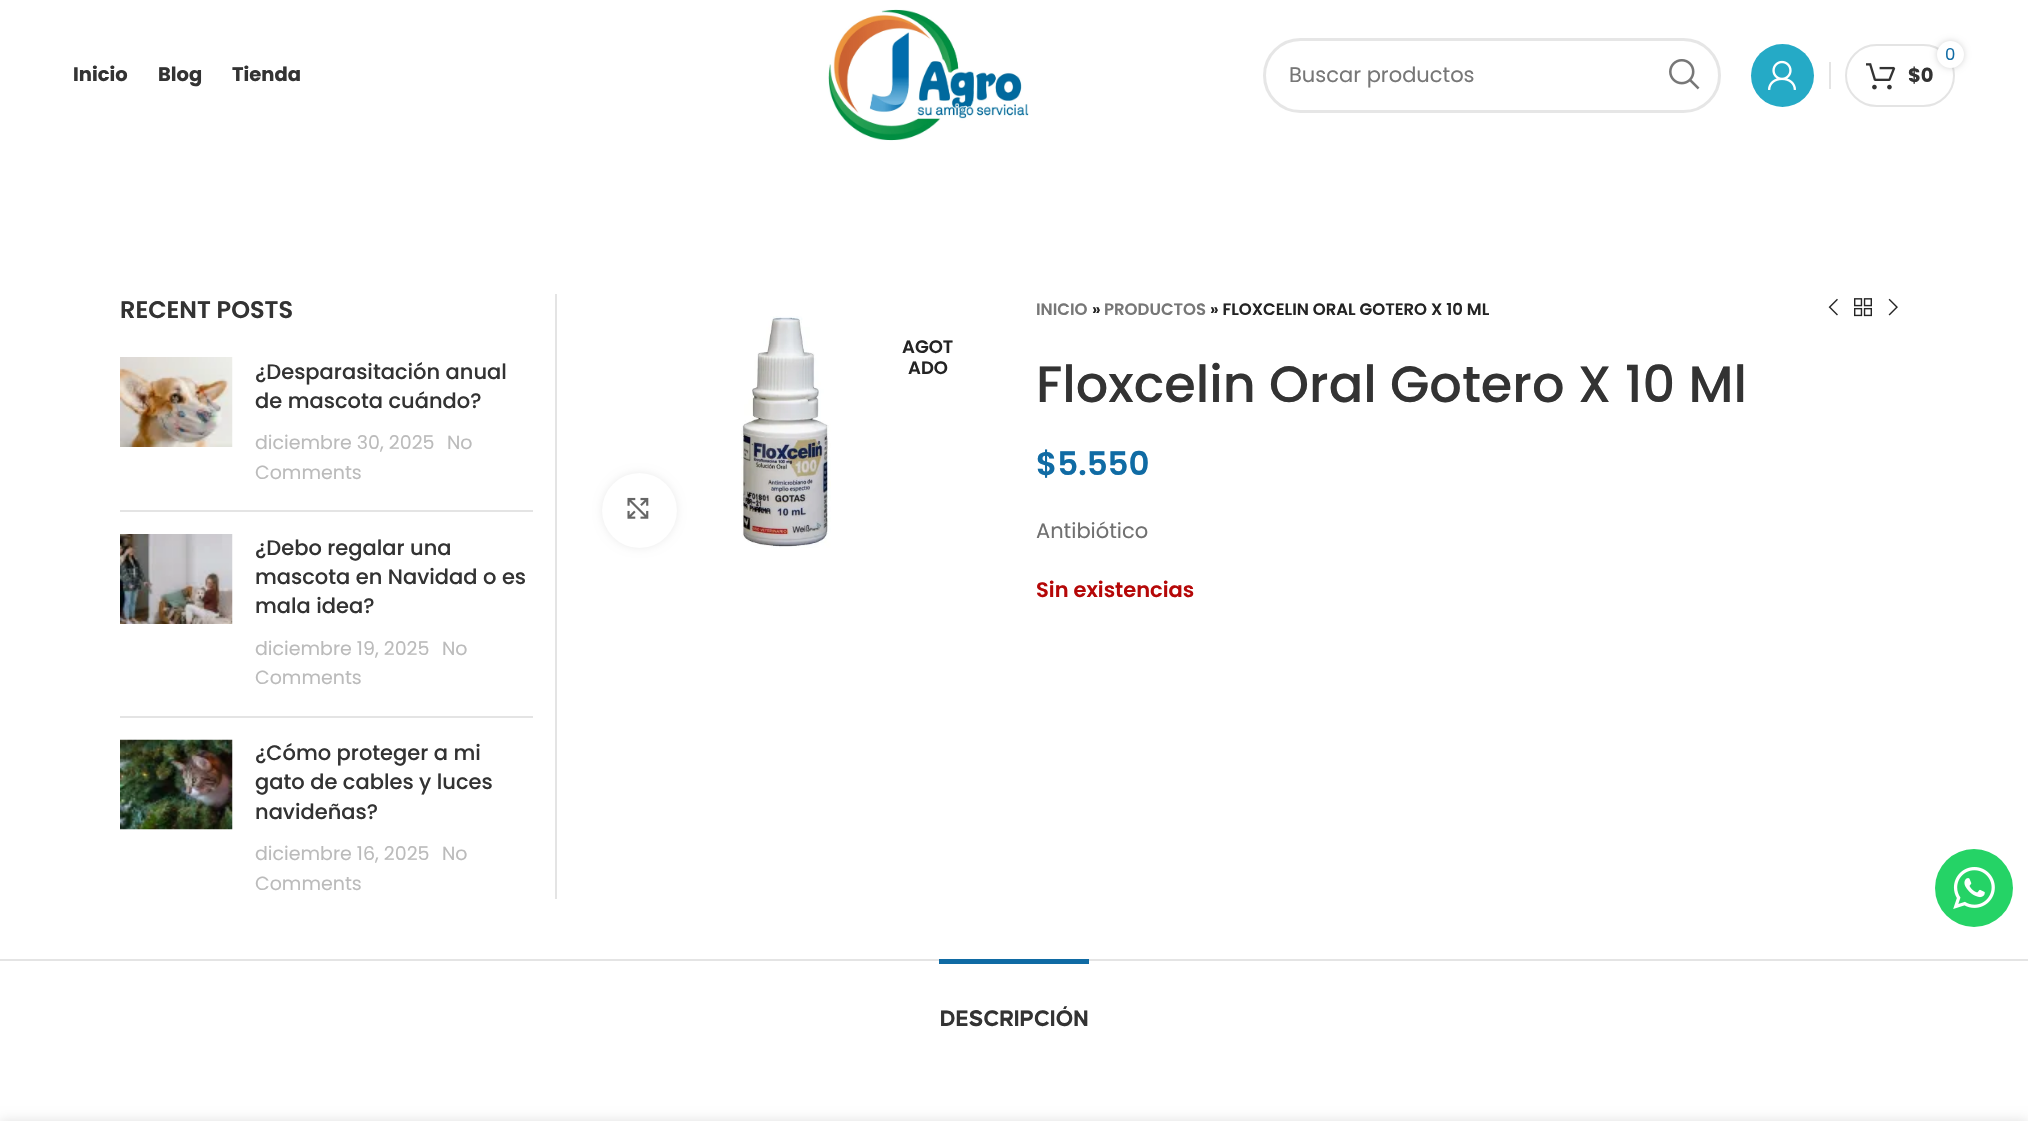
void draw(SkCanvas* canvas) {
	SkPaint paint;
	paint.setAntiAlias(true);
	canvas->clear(0xffffffff);
	SkFont f1(fontMgr->matchFamilyStyle("Poppins", SkFontStyle::Bold()), 19.5);
	f1.setSubpixel(true);
	paint.setColor(0xff333333);
	canvas->drawString("Inicio", 73, 81, f1, paint);
	canvas->drawString("Blog", 158, 81, f1, paint);
	canvas->drawString("Tienda", 232, 81, f1, paint);
	canvas->drawImageRect(SkImages::DeferredFromEncodedData(SkData::MakeFromFileName("img1.png")), SkRect::MakeXYWH(828, 9, 201, 132), SkSamplingOptions());
	paint.setStroke(true);
	paint.setStrokeWidth(3);
	paint.setColor(0xffe6e6e6);
	canvas->drawRoundRect(SkRect::MakeXYWH(1264.5, 39.5, 455, 72), 36, 36, paint);
	SkFont f2(fontMgr->matchFamilyStyle("Poppins", SkFontStyle::Normal()), 21);
	f2.setSubpixel(true);
	paint.setStroke(false);
	paint.setColor(0xff777777);
	canvas->drawString("Buscar productos", 1289, 82, f2, paint);
	canvas->drawImageRect(SkImages::DeferredFromEncodedData(SkData::MakeFromFileName("img2.png")), SkRect::MakeXYWH(1669, 59, 31, 31), SkSamplingOptions());
	paint.setColor(0xff25aac6);
	canvas->drawCircle(1782.5, 75.5, 31.5, paint);
	canvas->drawImageRect(SkImages::DeferredFromEncodedData(SkData::MakeFromFileName("img3.png")), SkRect::MakeXYWH(1768, 60, 28, 30), SkSamplingOptions());
	paint.setColor(0xffe4e4e4);
	canvas->drawRect(SkRect::MakeXYWH(1829, 62, 2, 27), paint);
	paint.setStroke(true);
	paint.setStrokeWidth(2);
	canvas->drawRoundRect(SkRect::MakeXYWH(1846, 45, 108, 61), 30.5, 30.5, paint);
	paint.setStroke(false);
	paint.setColor(0x2b000000);
	paint.setMaskFilter(SkMaskFilter::MakeBlur(kNormal_SkBlurStyle, 3));
	canvas->drawRoundRect(SkRect::MakeXYWH(1937, 41, 27, 27), 13.5, 13.5, paint);
	paint.setMaskFilter(nullptr);
	paint.setColor(0xffffffff);
	canvas->drawCircle(1950.5, 54.5, 13.5, paint);
	SkFont f3(fontMgr->matchFamilyStyle("Poppins", SkFontStyle::Normal()), 16.5);
	f3.setSubpixel(true);
	paint.setColor(0xff106ba4);
	canvas->drawString("0", 1945, 60, f3, paint);
	canvas->drawImageRect(SkImages::DeferredFromEncodedData(SkData::MakeFromFileName("img4.png")), SkRect::MakeXYWH(1866, 63, 30, 27), SkSamplingOptions());
	paint.setColor(0xff333333);
	canvas->drawString("$0", 1908, 82, f1, paint);
	paint.setColor(0xffe4e4e4);
	canvas->drawRect(SkRect::MakeXYWH(555, 294, 2, 605), paint);
	SkFont f4(fontMgr->matchFamilyStyle("Poppins", SkFontStyle(600, SkFontStyle::kNormal_Width, SkFontStyle::kUpright_Slant)), 24);
	f4.setSubpixel(true);
	paint.setColor(0xff333333);
	canvas->drawString("RECENT POSTS", 120, 318, f4, paint);
	paint.setColor(0xffe4e4e4);
	canvas->drawRect(SkRect::MakeXYWH(120, 510, 413, 2), paint);
	canvas->drawImageRect(SkImages::DeferredFromEncodedData(SkData::MakeFromFileName("img5.png")), SkRect::MakeXYWH(120, 357, 113, 90), SkSamplingOptions());
	SkFont f5(fontMgr->matchFamilyStyle("Poppins", SkFontStyle(500, SkFontStyle::kNormal_Width, SkFontStyle::kUpright_Slant)), 21);
	f5.setSubpixel(true);
	paint.setColor(0xff333333);
	canvas->drawString("¿Desparasitación anual", 255, 379, f5, paint);
	canvas->drawString("de mascota cuándo?", 255, 408, f5, paint);
	SkFont f6(fontMgr->matchFamilyStyle("Poppins", SkFontStyle::Normal()), 19);
	f6.setSubpixel(true);
	paint.setColor(0xffbbbbbb);
	canvas->drawString("diciembre 30, 2025", 255, 449, f6, paint);
	canvas->drawString("No", 447, 449, f6, paint);
	canvas->drawString("Comments", 255, 479, f6, paint);
	paint.setColor(0xffe4e4e4);
	canvas->drawRect(SkRect::MakeXYWH(120, 716, 413, 2), paint);
	canvas->drawImageRect(SkImages::DeferredFromEncodedData(SkData::MakeFromFileName("img6.png")), SkRect::MakeXYWH(120, 534, 113, 90), SkSamplingOptions());
	paint.setColor(0xff333333);
	canvas->drawString("¿Debo regalar una", 255, 555, f5, paint);
	canvas->drawString("mascota en Navidad o es", 255, 584, f5, paint);
	canvas->drawString("mala idea?", 255, 613, f5, paint);
	paint.setColor(0xffbbbbbb);
	canvas->drawString("diciembre 19, 2025", 255, 655, f6, paint);
	canvas->drawString("No", 442, 655, f6, paint);
	canvas->drawString("Comments", 255, 684, f6, paint);
	canvas->drawImageRect(SkImages::DeferredFromEncodedData(SkData::MakeFromFileName("img7.png")), SkRect::MakeXYWH(120, 739, 113, 91), SkSamplingOptions());
	paint.setColor(0xff333333);
	canvas->drawString("¿Cómo proteger a mi", 255, 760, f5, paint);
	canvas->drawString("gato de cables y luces", 255, 789, f5, paint);
	canvas->drawString("navideñas?", 255, 819, f5, paint);
	paint.setColor(0xffbbbbbb);
	canvas->drawString("diciembre 16, 2025", 255, 860, f6, paint);
	canvas->drawString("No", 442, 860, f6, paint);
	canvas->drawString("Comments", 255, 890, f6, paint);
	canvas->drawImageRect(SkImages::DeferredFromEncodedData(SkData::MakeFromFileName("img8.png")), SkRect::MakeXYWH(741, 316, 90, 232), SkSamplingOptions());
	SkFont f7(fontMgr->matchFamilyStyle("Poppins", SkFontStyle(600, SkFontStyle::kNormal_Width, SkFontStyle::kUpright_Slant)), 18);
	f7.setSubpixel(true);
	paint.setColor(0xff242424);
	canvas->drawString("AGOT", 902, 353, f7, paint);
	canvas->drawString("ADO", 908, 374, f7, paint);
	paint.setColor(0x14000000);
	paint.setMaskFilter(SkMaskFilter::MakeBlur(kNormal_SkBlurStyle, 4));
	canvas->drawRoundRect(SkRect::MakeXYWH(602, 473, 75, 75), 37.5, 37.5, paint);
	paint.setMaskFilter(nullptr);
	paint.setColor(0xffffffff);
	canvas->drawCircle(639.5, 510.5, 37.5, paint);
	canvas->drawImageRect(SkImages::DeferredFromEncodedData(SkData::MakeFromFileName("img9.png")), SkRect::MakeXYWH(627, 497, 22, 22), SkSamplingOptions());
	SkFont f8(fontMgr->matchFamilyStyle("Poppins", SkFontStyle(600, SkFontStyle::kNormal_Width, SkFontStyle::kUpright_Slant)), 16.5);
	f8.setSubpixel(true);
	paint.setColor(0xff777777);
	canvas->drawString("INICIO", 1036, 315, f8, paint);
	paint.setColor(0xff242424);
	canvas->drawString("»", 1092, 315, f8, paint);
	paint.setColor(0xff777777);
	canvas->drawString("PRODUCTOS", 1104, 315, f8, paint);
	paint.setColor(0xff242424);
	canvas->drawString("» FLOXCELIN ORAL GOTERO X 10 ML", 1210, 315, f8, paint);
	canvas->drawImageRect(SkImages::DeferredFromEncodedData(SkData::MakeFromFileName("img10.png")), SkRect::MakeXYWH(1828, 298, 10, 18), SkSamplingOptions());
	canvas->drawImageRect(SkImages::DeferredFromEncodedData(SkData::MakeFromFileName("img11.png")), SkRect::MakeXYWH(1854, 298, 18, 19), SkSamplingOptions());
	canvas->drawImageRect(SkImages::DeferredFromEncodedData(SkData::MakeFromFileName("img12.png")), SkRect::MakeXYWH(1888, 298, 10, 18), SkSamplingOptions());
	SkFont f9(fontMgr->matchFamilyStyle("Poppins", SkFontStyle(500, SkFontStyle::kNormal_Width, SkFontStyle::kUpright_Slant)), 51);
	f9.setSubpixel(true);
	paint.setColor(0xff333333);
	canvas->drawString("Floxcelin Oral Gotero X 10 Ml", 1036, 402, f9, paint);
	SkFont f10(fontMgr->matchFamilyStyle("Poppins", SkFontStyle(600, SkFontStyle::kNormal_Width, SkFontStyle::kUpright_Slant)), 32.5);
	f10.setSubpixel(true);
	paint.setColor(0xff106ba4);
	canvas->drawString("$5.550", 1036, 475, f10, paint);
	paint.setColor(0xff707070);
	canvas->drawString("Antibiótico", 1036, 538, f2, paint);
	SkFont f11(fontMgr->matchFamilyStyle("Poppins", SkFontStyle(600, SkFontStyle::kNormal_Width, SkFontStyle::kUpright_Slant)), 21);
	f11.setSubpixel(true);
	paint.setColor(0xffb50808);
	canvas->drawString("Sin existencias", 1036, 597, f11, paint);
	paint.setColor(0xffe4e4e4);
	canvas->drawRect(SkRect::MakeXYWH(0, 959, 2028, 2), paint);
	paint.setColor(0xff106ba4);
	canvas->drawRect(SkRect::MakeXYWH(939, 959, 150, 5), paint);
	SkFont f12(fontMgr->matchFamilyStyle("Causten", SkFontStyle::Bold()), 24);
	f12.setSubpixel(true);
	paint.setColor(0xff333333);
	canvas->drawString("DESCRIPCIÓN", 940, 1026, f12, paint);
	paint.setColor(0xff25d366);
	canvas->drawCircle(1974, 888, 39, paint);
	canvas->drawImageRect(SkImages::DeferredFromEncodedData(SkData::MakeFromFileName("img13.png")), SkRect::MakeXYWH(1953, 867, 42, 42), SkSamplingOptions());
	paint.setColor(0x24000000);
	paint.setMaskFilter(SkMaskFilter::MakeBlur(kNormal_SkBlurStyle, 7));
	canvas->drawRect(SkRect::MakeXYWH(0, 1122, 2028, 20), paint);
	paint.setMaskFilter(nullptr);
}
